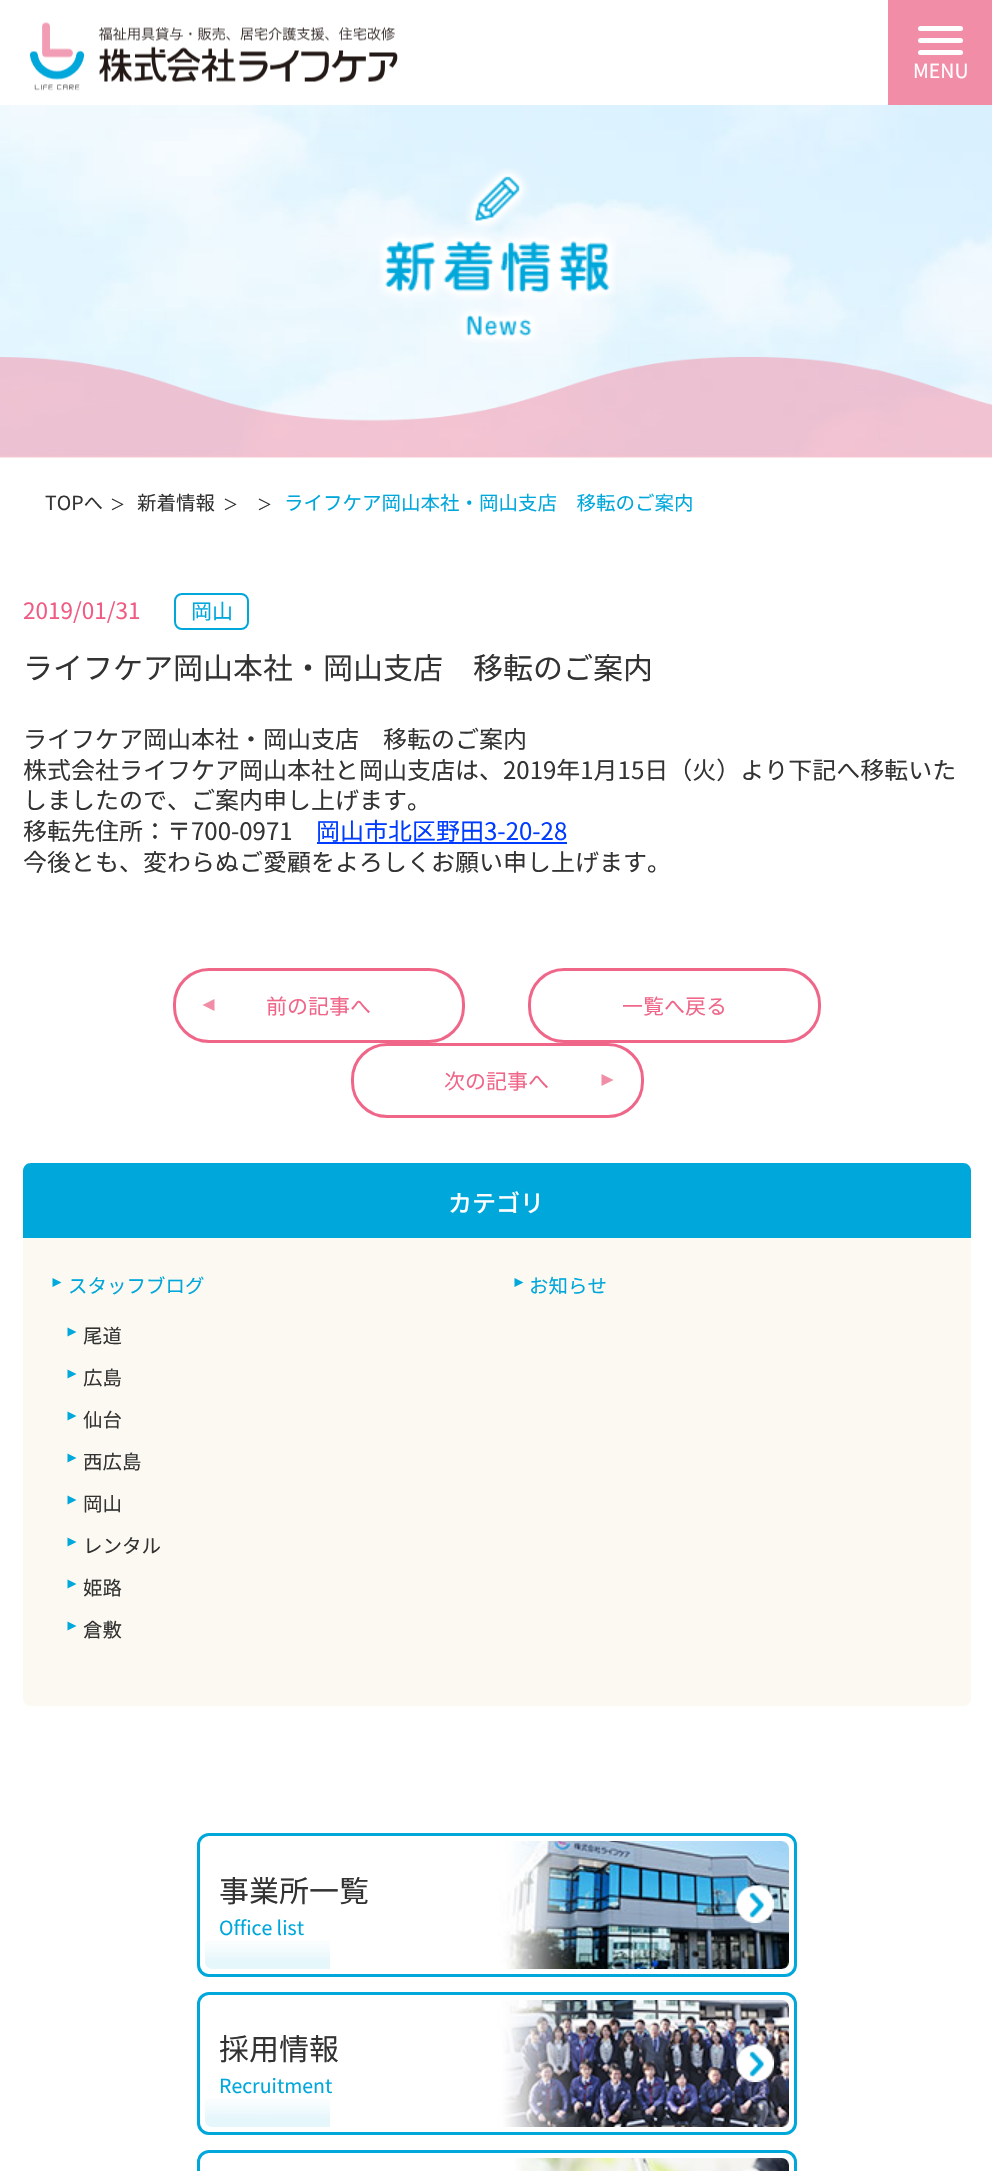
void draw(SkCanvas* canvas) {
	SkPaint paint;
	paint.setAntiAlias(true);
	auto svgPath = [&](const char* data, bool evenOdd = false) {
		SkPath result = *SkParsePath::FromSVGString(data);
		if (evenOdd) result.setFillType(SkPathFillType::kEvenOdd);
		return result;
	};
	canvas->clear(0xffffffff);
	canvas->drawImageRect(SkImages::DeferredFromEncodedData(SkData::MakeFromFileName("img1.png")), SkRect::MakeXYWH(30, 22, 368, 69), SkSamplingOptions());
	paint.setColor(0xfff28da7);
	canvas->drawRect(SkRect::MakeXYWH(888, 0, 104, 105), paint);
	paint.setColor(0xffffffff);
	canvas->drawRoundRect(SkRect::MakeXYWH(918, 26, 45, 5), 2.5, 2.5, paint);
	canvas->drawRoundRect(SkRect::MakeXYWH(918, 38, 45, 5), 2.5, 2.5, paint);
	canvas->drawRoundRect(SkRect::MakeXYWH(918, 50, 45, 5), 2.5, 2.5, paint);
	SkFont f1(fontMgr->matchFamilyStyle("Noto Sans JP", SkFontStyle::Normal()), 19.5);
	f1.setSubpixel(true);
	canvas->drawString("MENU", 913, 78, f1, paint);
	canvas->drawImageRect(SkImages::DeferredFromEncodedData(SkData::MakeFromFileName("img2.png")), SkRect::MakeXYWH(0, 105, 992, 353), SkSamplingOptions());
	canvas->drawImageRect(SkImages::DeferredFromEncodedData(SkData::MakeFromFileName("img3.png")), SkRect::MakeXYWH(378, 168, 238, 175), SkSamplingOptions());
	canvas->drawImageRect(SkImages::DeferredFromEncodedData(SkData::MakeFromFileName("img4.png")), SkRect::MakeXYWH(0, 357, 992, 101), SkSamplingOptions());
	paint.setColor(0xff333333);
	canvas->drawString("TOPへ", 45, 510, f1, paint);
	SkFont f2(fontMgr->matchFamilyStyle("Noto Sans JP", SkFontStyle::Normal()), 15);
	f2.setSubpixel(true);
	canvas->drawString("＞", 110, 510, f2, paint);
	canvas->drawString("新着情報", 137, 510, f1, paint);
	canvas->drawString("＞", 223, 510, f2, paint);
	canvas->drawString("＞", 257, 510, f2, paint);
	paint.setColor(0xff00a7db);
	canvas->drawString("ライフケア岡山本社・岡山支店　移転のご案内", 284, 510, f1, paint);
	SkFont f3(fontMgr->matchFamilyStyle("Noto Sans JP", SkFontStyle::Normal()), 22.5);
	f3.setSubpixel(true);
	paint.setColor(0xfff05b83);
	canvas->drawString("2019/01/31", 23, 619, f3, paint);
	paint.setStroke(true);
	paint.setStrokeWidth(2);
	paint.setColor(0xff00a7db);
	canvas->drawRoundRect(SkRect::MakeXYWH(175, 594, 73, 35), 7, 7, paint);
	SkFont f4(fontMgr->matchFamilyStyle("Noto Sans JP", SkFontStyle::Normal()), 21);
	f4.setSubpixel(true);
	paint.setStroke(false);
	canvas->drawString("岡山", 191, 619, f4, paint);
	SkFont f5(fontMgr->matchFamilyStyle("Noto Sans JP", SkFontStyle::Normal()), 30);
	f5.setSubpixel(true);
	paint.setColor(0xff333333);
	canvas->drawString("ライフケア岡山本社・岡山支店　移転のご案内", 23, 679, f5, paint);
	SkFont f6(fontMgr->matchFamilyStyle("Noto Sans JP", SkFontStyle::Normal()), 24);
	f6.setSubpixel(true);
	canvas->drawString("ライフケア岡山本社・岡山支店　移転のご案内", 23, 748, f6, paint);
	canvas->drawString("株式会社ライフケア岡山本社と岡山支店は、2019年1月15日（火）より下記へ移転いた", 23, 779, f6, paint);
	canvas->drawString("しましたので、ご案内申し上げます。", 23, 809, f6, paint);
	canvas->drawString("移転先住所：〒700-0971", 23, 840, f6, paint);
	paint.setColor(0xff003cff);
	canvas->drawString("岡山市北区野田3-20-28", 316, 840, f6, paint);
	canvas->drawRect(SkRect::MakeXYWH(317, 842, 250, 2), paint);
	paint.setColor(0xff333333);
	canvas->drawString("今後とも、変わらぬご愛顧をよろしくお願い申し上げます。", 23, 871, f6, paint);
	paint.setStroke(true);
	paint.setStrokeWidth(3);
	paint.setColor(0xffef6689);
	canvas->drawRoundRect(SkRect::MakeXYWH(174.5, 969.5, 289, 72), 34.5, 34.5, paint);
	paint.setStroke(false);
	paint.setColor(0xfff28da7);
	canvas->drawPath(svgPath("M214.5 999V1011L202.5 1005Z"), paint);
	paint.setColor(0xffef6689);
	canvas->drawString("前の記事へ", 266, 1014, f4, paint);
	paint.setStroke(true);
	canvas->drawRoundRect(SkRect::MakeXYWH(529.5, 969.5, 290, 72), 34.5, 34.5, paint);
	paint.setStroke(false);
	canvas->drawString("一覧へ戻る", 622, 1014, f4, paint);
	paint.setStroke(true);
	canvas->drawRoundRect(SkRect::MakeXYWH(352.5, 1044.5, 290, 72), 34.5, 34.5, paint);
	paint.setStroke(false);
	canvas->drawString("次の記事へ", 444, 1089, f4, paint);
	paint.setColor(0xfff28da7);
	canvas->drawPath(svgPath("M601.5 1086V1074L613.5 1080Z"), paint);
	paint.setColor(0xff00a7db);
	canvas->drawPath(svgPath("M31 1163H963C967.5 1163 971 1166.5 971 1171V1238H23V1171C23 1166.5 26.5 1163 31 1163Z"), paint);
	SkFont f7(fontMgr->matchFamilyStyle("Noto Sans JP", SkFontStyle(500, SkFontStyle::kNormal_Width, SkFontStyle::kUpright_Slant)), 24);
	f7.setSubpixel(true);
	paint.setColor(0xffffffff);
	canvas->drawString("カテゴリ", 448, 1212, f7, paint);
	paint.setColor(0xfffbf9f1);
	canvas->drawPath(svgPath("M23 1238H971V1698C971 1702.5 967.5 1706 963 1706H31C26.5 1706 23 1702.5 23 1698Z"), paint);
	paint.setColor(0xff00a8db);
	canvas->drawPath(svgPath("M52.5 1287V1278L61.5 1282.5Z"), paint);
	paint.setColor(0xff00a7db);
	canvas->drawString("スタッフブログ", 68, 1293, f1, paint);
	paint.setColor(0xff00a8db);
	canvas->drawPath(svgPath("M67.5 1336.5V1327.5L76.5 1332Z"), paint);
	paint.setColor(0xff333333);
	canvas->drawString("尾道", 83, 1343, f1, paint);
	paint.setColor(0xff00a8db);
	canvas->drawPath(svgPath("M67.5 1378.5V1369.5L76.5 1374Z"), paint);
	paint.setColor(0xff333333);
	canvas->drawString("広島", 83, 1385, f1, paint);
	paint.setColor(0xff00a8db);
	canvas->drawPath(svgPath("M67.5 1420.5V1411.5L76.5 1416Z"), paint);
	paint.setColor(0xff333333);
	canvas->drawString("仙台", 83, 1427, f1, paint);
	paint.setColor(0xff00a8db);
	canvas->drawPath(svgPath("M67.5 1462.5V1453.5L76.5 1458Z"), paint);
	paint.setColor(0xff333333);
	canvas->drawString("西広島", 83, 1469, f1, paint);
	paint.setColor(0xff00a8db);
	canvas->drawPath(svgPath("M67.5 1504.5V1495.5L76.5 1500Z"), paint);
	paint.setColor(0xff333333);
	canvas->drawString("岡山", 83, 1511, f1, paint);
	paint.setColor(0xff00a8db);
	canvas->drawPath(svgPath("M67.5 1546.5V1537.5L76.5 1542Z"), paint);
	paint.setColor(0xff333333);
	canvas->drawString("レンタル", 83, 1553, f1, paint);
	paint.setColor(0xff00a8db);
	canvas->drawPath(svgPath("M67.5 1588.5V1579.5L76.5 1584Z"), paint);
	paint.setColor(0xff333333);
	canvas->drawString("姫路", 83, 1595, f1, paint);
	paint.setColor(0xff00a8db);
	canvas->drawPath(svgPath("M67.5 1630.5V1621.5L76.5 1626Z"), paint);
	paint.setColor(0xff333333);
	canvas->drawString("倉敷", 83, 1637, f1, paint);
	paint.setColor(0xff00a8db);
	canvas->drawPath(svgPath("M514.5 1287V1278L523.5 1282.5Z"), paint);
	paint.setColor(0xff00a7db);
	canvas->drawString("お知らせ", 529, 1293, f1, paint);
	canvas->drawImageRect(SkImages::DeferredFromEncodedData(SkData::MakeFromFileName("img5.png")), SkRect::MakeXYWH(196, 1941, 601, 29), SkSamplingOptions());
	paint.setStroke(true);
	canvas->drawRoundRect(SkRect::MakeXYWH(198.5, 1834.5, 597, 141), 10.5, 10.5, paint);
	canvas->drawImageRect(SkImages::DeferredFromEncodedData(SkData::MakeFromFileName("img6.png")), SkRect::MakeXYWH(330, 1841, 459, 128), SkSamplingOptions());
	paint.setStrokeWidth(5);
	paint.setColor(0xffffffff);
	canvas->drawRoundRect(SkRect::MakeXYWH(202.5, 1838.5, 589, 133), 9.5, 9.5, paint);
	paint.setStroke(false);
	paint.setColor(0xff333333);
	canvas->drawString("事業所一覧", 219, 1902, f5, paint);
	canvas->drawImageRect(SkImages::DeferredFromEncodedData(SkData::MakeFromFileName("img7.png")), SkRect::MakeXYWH(736, 1885, 38, 38), SkSamplingOptions());
	paint.setColor(0xff00a7db);
	canvas->drawString("Office list", 219, 1935, f1, paint);
	canvas->drawImageRect(SkImages::DeferredFromEncodedData(SkData::MakeFromFileName("img8.png")), SkRect::MakeXYWH(196, 2099, 601, 28), SkSamplingOptions());
	paint.setStroke(true);
	paint.setStrokeWidth(3);
	canvas->drawRoundRect(SkRect::MakeXYWH(198.5, 1993.5, 597, 140), 10.5, 10.5, paint);
	canvas->drawImageRect(SkImages::DeferredFromEncodedData(SkData::MakeFromFileName("img9.png")), SkRect::MakeXYWH(330, 2000, 459, 127), SkSamplingOptions());
	paint.setStrokeWidth(5);
	paint.setColor(0xffffffff);
	canvas->drawRoundRect(SkRect::MakeXYWH(202.5, 1997.5, 589, 132), 9.5, 9.5, paint);
	paint.setStroke(false);
	paint.setColor(0xff333333);
	canvas->drawString("採用情報", 219, 2060, f5, paint);
	canvas->drawImageRect(SkImages::DeferredFromEncodedData(SkData::MakeFromFileName("img10.png")), SkRect::MakeXYWH(736, 2044, 38, 38), SkSamplingOptions());
	paint.setColor(0xff00a7db);
	canvas->drawString("Recruitment", 219, 2093, f1, paint);
	paint.setStroke(true);
	paint.setStrokeWidth(3);
	canvas->drawRoundRect(SkRect::MakeXYWH(198.5, 2151.5, 597, 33), 10.5, 10.5, paint);
	canvas->drawImageRect(SkImages::DeferredFromEncodedData(SkData::MakeFromFileName("img11.png")), SkRect::MakeXYWH(515, 2158, 274, 13), SkSamplingOptions());
	paint.setStrokeWidth(5);
	paint.setColor(0xffffffff);
	canvas->drawRoundRect(SkRect::MakeXYWH(202.5, 2155.5, 589, 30), 9.5, 9.5, paint);
}
